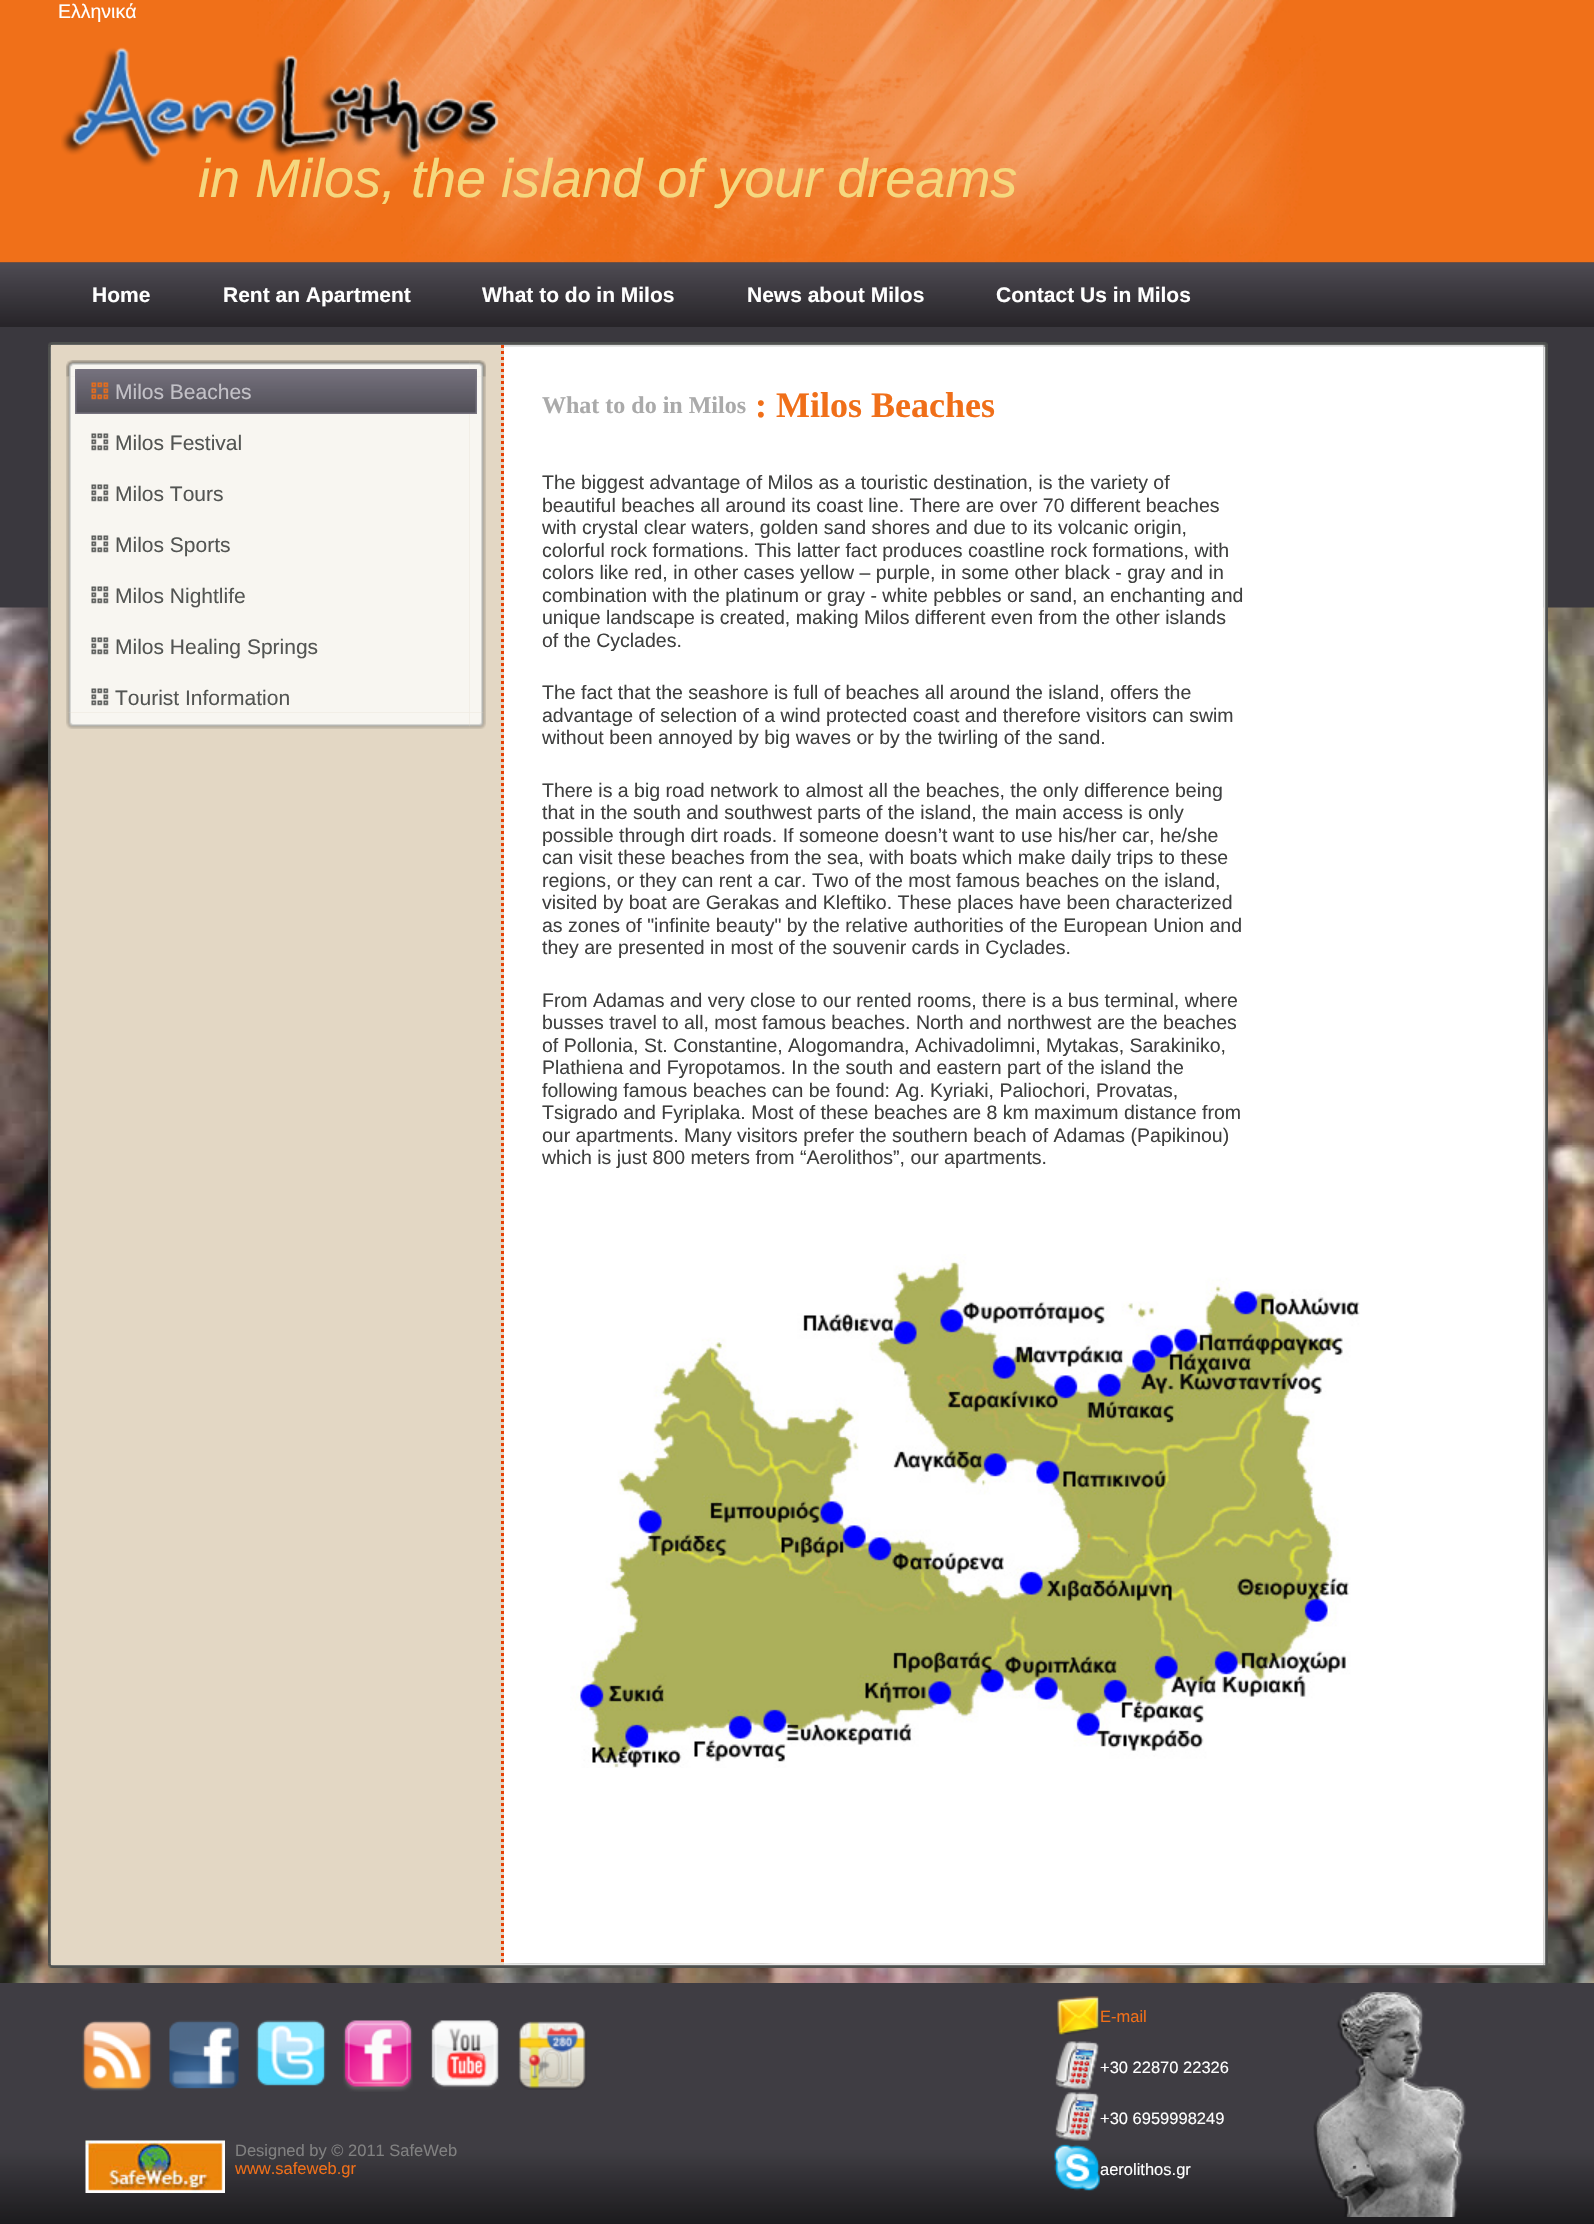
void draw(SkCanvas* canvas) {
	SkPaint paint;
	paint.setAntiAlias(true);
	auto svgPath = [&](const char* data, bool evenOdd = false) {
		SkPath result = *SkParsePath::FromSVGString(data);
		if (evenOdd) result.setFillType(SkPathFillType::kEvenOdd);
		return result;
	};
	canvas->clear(0xff3a383e);
	canvas->drawImageRect(SkImages::DeferredFromEncodedData(SkData::MakeFromFileName("img1.png")), SkRect::MakeXYWH(0, 607, 1594, 1376), SkSamplingOptions());
	canvas->drawImageRect(SkImages::DeferredFromEncodedData(SkData::MakeFromFileName("img2.png")), SkRect::MakeXYWH(0, 0, 1594, 263), SkSamplingOptions());
	SkFont f1(fontMgr->matchFamilyStyle("Liberation Sans", SkFontStyle::Normal()), 19.5);
	f1.setSubpixel(true);
	paint.setColor(0xffffffff);
	canvas->drawString("Ελληνικά", 58, 18, f1, paint);
	canvas->drawImageRect(SkImages::DeferredFromEncodedData(SkData::MakeFromFileName("img3.png")), SkRect::MakeXYWH(61, 47, 438, 120), SkSamplingOptions());
	SkFont f2(fontMgr->matchFamilyStyle("Liberation Sans", SkFontStyle::Italic()), 54);
	f2.setSubpixel(true);
	paint.setColor(0xfff5d87f);
	canvas->drawString("in Milos, the island of your dreams", 198, 197, f2, paint);
	canvas->drawImageRect(SkImages::DeferredFromEncodedData(SkData::MakeFromFileName("img4.png")), SkRect::MakeXYWH(0, 262, 1594, 65), SkSamplingOptions());
	SkFont f3(fontMgr->matchFamilyStyle("Liberation Sans", SkFontStyle::Bold()), 21);
	f3.setSubpixel(true);
	paint.setColor(0xffffffff);
	canvas->drawString("Home", 92, 302, f3, paint);
	canvas->drawString("Rent an Apartment", 223, 302, f3, paint);
	canvas->drawString("What to do in Milos", 482, 302, f3, paint);
	canvas->drawString("News about Milos", 747, 302, f3, paint);
	canvas->drawString("Contact Us in Milos", 996, 302, f3, paint);
	canvas->drawImageRect(SkImages::DeferredFromEncodedData(SkData::MakeFromFileName("img5.png")), SkRect::MakeXYWH(48, 342, 1496, 1626), SkSamplingOptions());
	canvas->drawImageRect(SkImages::DeferredFromEncodedData(SkData::MakeFromFileName("img6.png")), SkRect::MakeXYWH(48, 342, 1496, 5), SkSamplingOptions());
	canvas->drawImageRect(SkImages::DeferredFromEncodedData(SkData::MakeFromFileName("img9.png")), SkRect::MakeXYWH(48, 346, 1496, 1618), SkSamplingOptions());
	canvas->drawImageRect(SkImages::DeferredFromEncodedData(SkData::MakeFromFileName("img10.png")), SkRect::MakeXYWH(1543, 346, 5, 1618), SkSamplingOptions());
	canvas->drawImageRect(SkImages::DeferredFromEncodedData(SkData::MakeFromFileName("img7.png")), SkRect::MakeXYWH(1543, 342, 5, 1626), SkSamplingOptions());
	canvas->drawImageRect(SkImages::DeferredFromEncodedData(SkData::MakeFromFileName("img8.png")), SkRect::MakeXYWH(1543, 342, 5, 5), SkSamplingOptions());
	paint.setColor(0xffe3d7c4);
	canvas->drawRect(SkRect::MakeXYWH(51, 345, 453, 1620), paint);
	paint.setStroke(true);
	paint.setStrokeWidth(3);
	paint.setColor(0xffe64105);
	paint.setPathEffect(SkDashPathEffect::Make({{3, 3}}, 0));
	canvas->drawPath(svgPath("M502.5 345V1965"), paint);
	paint.setPathEffect(nullptr);
	canvas->drawImageRect(SkImages::DeferredFromEncodedData(SkData::MakeFromFileName("img11.png")), SkRect::MakeXYWH(66, 360, 404, 369), SkSamplingOptions());
	canvas->drawImageRect(SkImages::DeferredFromEncodedData(SkData::MakeFromFileName("img12.png")), SkRect::MakeXYWH(66, 360, 404, 17), SkSamplingOptions());
	canvas->drawImageRect(SkImages::DeferredFromEncodedData(SkData::MakeFromFileName("img15.png")), SkRect::MakeXYWH(66, 376, 404, 337), SkSamplingOptions());
	canvas->drawImageRect(SkImages::DeferredFromEncodedData(SkData::MakeFromFileName("img16.png")), SkRect::MakeXYWH(469, 376, 17, 337), SkSamplingOptions());
	canvas->drawImageRect(SkImages::DeferredFromEncodedData(SkData::MakeFromFileName("img13.png")), SkRect::MakeXYWH(469, 360, 17, 369), SkSamplingOptions());
	canvas->drawImageRect(SkImages::DeferredFromEncodedData(SkData::MakeFromFileName("img14.png")), SkRect::MakeXYWH(469, 360, 17, 17), SkSamplingOptions());
	canvas->drawImageRect(SkImages::DeferredFromEncodedData(SkData::MakeFromFileName("img17.png")), SkRect::MakeXYWH(75, 369, 369, 45), SkSamplingOptions());
	canvas->drawImageRect(SkImages::DeferredFromEncodedData(SkData::MakeFromFileName("img18.png")), SkRect::MakeXYWH(444, 369, 33, 45), SkSamplingOptions());
	SkFont f4(fontMgr->matchFamilyStyle("Liberation Sans", SkFontStyle::Normal()), 21);
	f4.setSubpixel(true);
	paint.setStroke(false);
	paint.setColor(0xffc3c1c7);
	canvas->drawString("Milos Beaches", 115, 399, f4, paint);
	canvas->drawImageRect(SkImages::DeferredFromEncodedData(SkData::MakeFromFileName("img19.png")), SkRect::MakeXYWH(91, 433, 18, 18), SkSamplingOptions());
	paint.setColor(0xff535553);
	canvas->drawString("Milos Festival", 115, 450, f4, paint);
	canvas->drawImageRect(SkImages::DeferredFromEncodedData(SkData::MakeFromFileName("img19.png")), SkRect::MakeXYWH(91, 484, 18, 18), SkSamplingOptions());
	canvas->drawString("Milos Tours", 115, 501, f4, paint);
	canvas->drawImageRect(SkImages::DeferredFromEncodedData(SkData::MakeFromFileName("img19.png")), SkRect::MakeXYWH(91, 535, 18, 18), SkSamplingOptions());
	canvas->drawString("Milos Sports", 115, 552, f4, paint);
	canvas->drawImageRect(SkImages::DeferredFromEncodedData(SkData::MakeFromFileName("img19.png")), SkRect::MakeXYWH(91, 586, 18, 18), SkSamplingOptions());
	canvas->drawString("Milos Nightlife", 115, 603, f4, paint);
	canvas->drawImageRect(SkImages::DeferredFromEncodedData(SkData::MakeFromFileName("img19.png")), SkRect::MakeXYWH(91, 637, 18, 18), SkSamplingOptions());
	canvas->drawString("Milos Healing Springs", 115, 654, f4, paint);
	canvas->drawImageRect(SkImages::DeferredFromEncodedData(SkData::MakeFromFileName("img19.png")), SkRect::MakeXYWH(91, 688, 18, 18), SkSamplingOptions());
	canvas->drawString("Tourist Information", 115, 705, f4, paint);
	SkFont f5(fontMgr->matchFamilyStyle("Liberation Serif", SkFontStyle::Bold()), 24);
	f5.setSubpixel(true);
	paint.setColor(0xffaaaaaa);
	canvas->drawString("What to do in Milos", 542, 413, f5, paint);
	SkFont f6(fontMgr->matchFamilyStyle("Liberation Serif", SkFontStyle::Bold()), 36);
	f6.setSubpixel(true);
	paint.setColor(0xfff06f19);
	canvas->drawString(": Milos Beaches", 755, 417, f6, paint);
	paint.setColor(0xff3f403f);
	canvas->drawString("The biggest advantage of Milos as a touristic destination, is the variety of", 542, 489, f1, paint);
	canvas->drawString("beautiful beaches all around its coast line. There are over 70 different beaches", 542, 512, f1, paint);
	canvas->drawString("with crystal clear waters, golden sand shores and due to its volcanic origin,", 542, 534, f1, paint);
	canvas->drawString("colorful rock formations. This latter fact produces coastline rock formations, with", 542, 557, f1, paint);
	canvas->drawString("colors like red, in other cases yellow – purple, in some other black - gray and in", 542, 579, f1, paint);
	canvas->drawString("combination with the platinum or gray - white pebbles or sand, an enchanting and", 542, 602, f1, paint);
	canvas->drawString("unique landscape is created, making Milos different even from the other islands", 542, 624, f1, paint);
	canvas->drawString("of the Cyclades.", 542, 647, f1, paint);
	canvas->drawString("The fact that the seashore is full of beaches all around the island, offers the", 542, 699, f1, paint);
	canvas->drawString("advantage of selection of a wind protected coast and therefore visitors can swim", 542, 722, f1, paint);
	canvas->drawString("without been annoyed by big waves or by the twirling of the sand.", 542, 744, f1, paint);
	canvas->drawString("There is a big road network to almost all the beaches, the only difference being", 542, 797, f1, paint);
	canvas->drawString("that in the south and southwest parts of the island, the main access is only", 542, 819, f1, paint);
	canvas->drawString("possible through dirt roads. If someone doesn’t want to use his/her car, he/she", 542, 842, f1, paint);
	canvas->drawString("can visit these beaches from the sea, with boats which make daily trips to these", 542, 864, f1, paint);
	canvas->drawString("regions, or they can rent a car. Two of the most famous beaches on the island,", 542, 887, f1, paint);
	canvas->drawString("visited by boat are Gerakas and Kleftiko. These places have been characterized", 542, 909, f1, paint);
	canvas->drawString("as zones of \"infinite beauty\" by the relative authorities of the European Union and", 542, 932, f1, paint);
	canvas->drawString("they are presented in most of the souvenir cards in Cyclades.", 542, 954, f1, paint);
	canvas->drawString("From Adamas and very close to our rented rooms, there is a bus terminal, where", 542, 1007, f1, paint);
	canvas->drawString("busses travel to all, most famous beaches. North and northwest are the beaches", 542, 1029, f1, paint);
	canvas->drawString("of Pollonia, St. Constantine, Alogomandra, Achivadolimni, Mytakas, Sarakiniko,", 542, 1052, f1, paint);
	canvas->drawString("Plathiena and Fyropotamos. In the south and eastern part of the island the", 542, 1074, f1, paint);
	canvas->drawString("following famous beaches can be found: Ag. Kyriaki, Paliochori, Provatas,", 542, 1097, f1, paint);
	canvas->drawString("Tsigrado and Fyriplaka. Most of these beaches are 8 km maximum distance from", 542, 1119, f1, paint);
	canvas->drawString("our apartments. Many visitors prefer the southern beach of Adamas (Papikinou)", 542, 1142, f1, paint);
	canvas->drawString("which is just 800 meters from “Aerolithos”, our apartments.", 542, 1164, f1, paint);
	canvas->drawImageRect(SkImages::DeferredFromEncodedData(SkData::MakeFromFileName("img20.png")), SkRect::MakeXYWH(570, 1254, 790, 514), SkSamplingOptions());
	paint.setColor(0xff3f3d43);
	canvas->drawRect(SkRect::MakeXYWH(0, 1983, 1594, 167), paint);
	canvas->drawImageRect(SkImages::DeferredFromEncodedData(SkData::MakeFromFileName("img21.png")), SkRect::MakeXYWH(82, 2020, 70, 71), SkSamplingOptions());
	canvas->drawImageRect(SkImages::DeferredFromEncodedData(SkData::MakeFromFileName("img22.png")), SkRect::MakeXYWH(169, 2020, 70, 69), SkSamplingOptions());
	canvas->drawImageRect(SkImages::DeferredFromEncodedData(SkData::MakeFromFileName("img23.png")), SkRect::MakeXYWH(256, 2020, 70, 66), SkSamplingOptions());
	canvas->drawImageRect(SkImages::DeferredFromEncodedData(SkData::MakeFromFileName("img24.png")), SkRect::MakeXYWH(343, 2020, 70, 72), SkSamplingOptions());
	canvas->drawImageRect(SkImages::DeferredFromEncodedData(SkData::MakeFromFileName("img25.png")), SkRect::MakeXYWH(431, 2020, 68, 70), SkSamplingOptions());
	canvas->drawImageRect(SkImages::DeferredFromEncodedData(SkData::MakeFromFileName("img26.png")), SkRect::MakeXYWH(518, 2021, 69, 69), SkSamplingOptions());
	canvas->drawImageRect(SkImages::DeferredFromEncodedData(SkData::MakeFromFileName("img27.png")), SkRect::MakeXYWH(1056, 1996, 43, 39), SkSamplingOptions());
	SkFont f7(fontMgr->matchFamilyStyle("Liberation Sans", SkFontStyle::Normal()), 16.5);
	f7.setSubpixel(true);
	paint.setColor(0xfff06f19);
	canvas->drawString("E-mail", 1100, 2022, f7, paint);
	canvas->drawImageRect(SkImages::DeferredFromEncodedData(SkData::MakeFromFileName("img28.png")), SkRect::MakeXYWH(1055, 2041, 44, 49), SkSamplingOptions());
	paint.setColor(0xffffffff);
	canvas->drawString("+30 22870 22326", 1100, 2073, f7, paint);
	canvas->drawImageRect(SkImages::DeferredFromEncodedData(SkData::MakeFromFileName("img28.png")), SkRect::MakeXYWH(1055, 2092, 44, 49), SkSamplingOptions());
	canvas->drawString("+30 6959998249", 1100, 2124, f7, paint);
	canvas->drawImageRect(SkImages::DeferredFromEncodedData(SkData::MakeFromFileName("img32.png")), SkRect::MakeXYWH(0, 2150, 1594, 74), SkSamplingOptions());
	canvas->drawImageRect(SkImages::DeferredFromEncodedData(SkData::MakeFromFileName("img29.png")), SkRect::MakeXYWH(1054, 2144, 46, 47), SkSamplingOptions());
	canvas->drawString("aerolithos.gr", 1100, 2175, f7, paint);
	canvas->drawImageRect(SkImages::DeferredFromEncodedData(SkData::MakeFromFileName("img30.png")), SkRect::MakeXYWH(1313, 1992, 153, 225), SkSamplingOptions());
	canvas->drawImageRect(SkImages::DeferredFromEncodedData(SkData::MakeFromFileName("img31.png")), SkRect::MakeXYWH(85, 2140, 140, 53), SkSamplingOptions());
	paint.setColor(0xff808080);
	canvas->drawString("Designed by © 2011 SafeWeb", 235, 2156, f7, paint);
	paint.setColor(0xfff06f19);
	canvas->drawString("www.safeweb.gr", 235, 2174, f7, paint);
}
